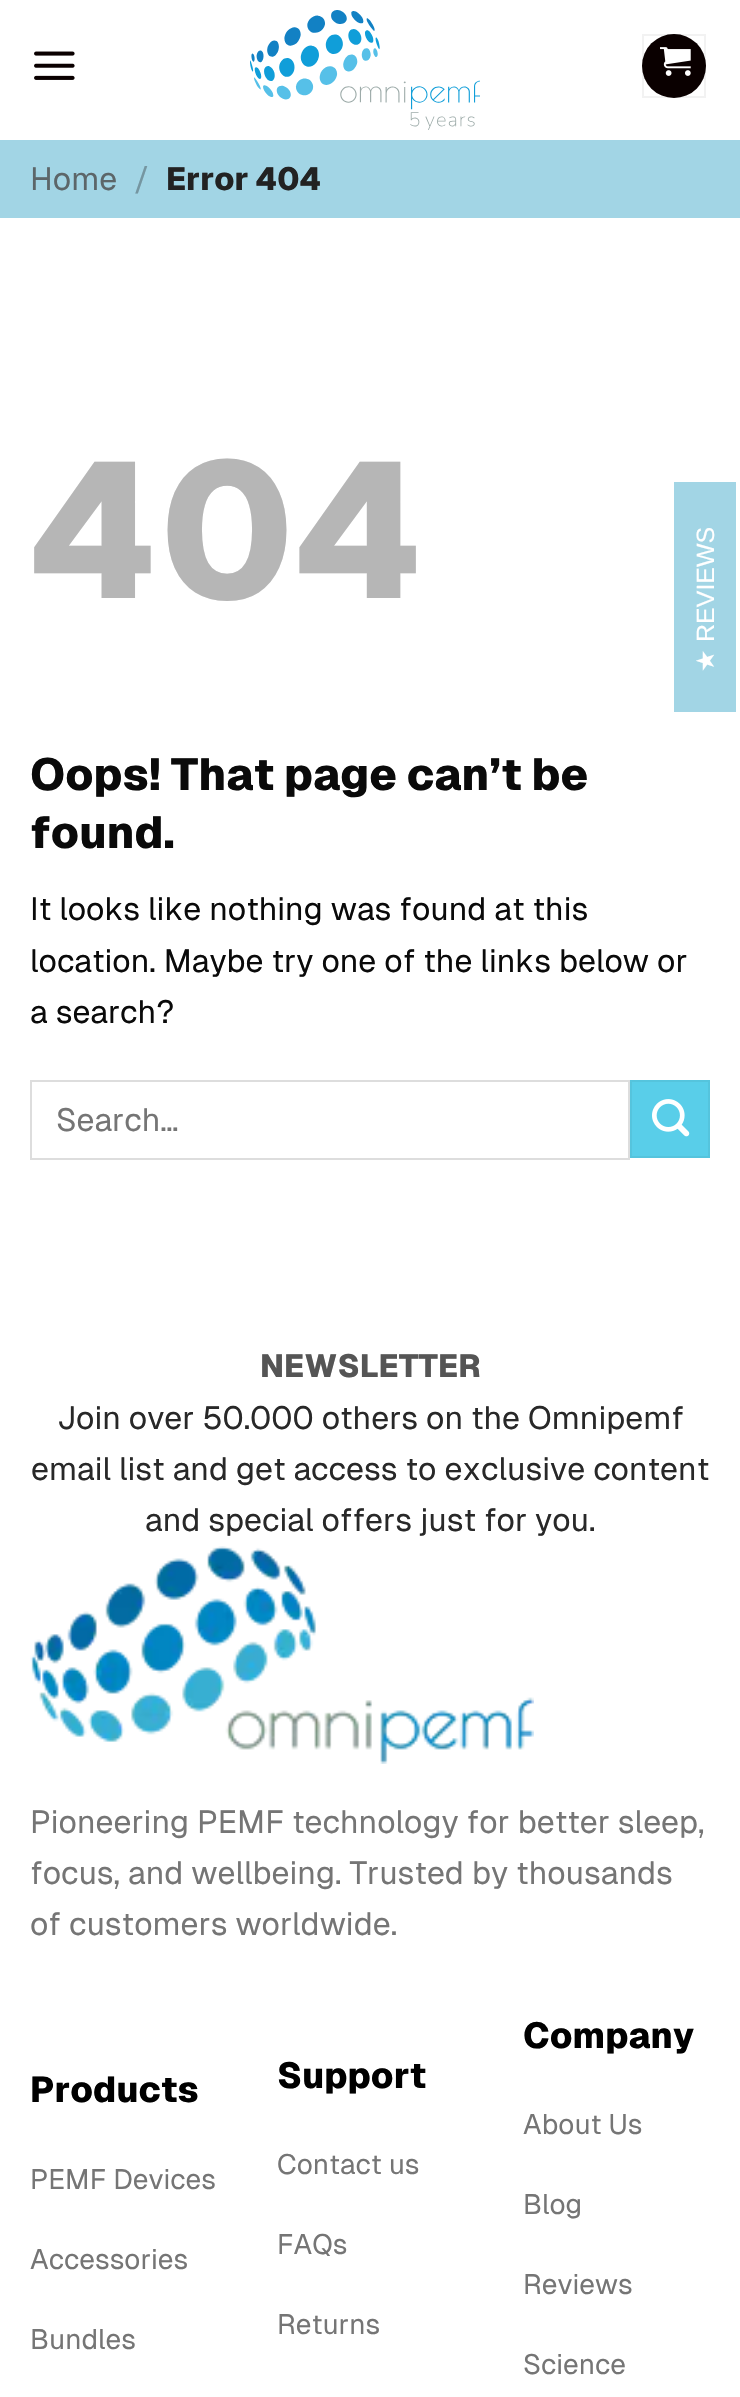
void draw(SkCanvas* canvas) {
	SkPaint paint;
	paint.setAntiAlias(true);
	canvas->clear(0xffffffff);
	canvas->drawImageRect(SkImages::DeferredFromEncodedData(SkData::MakeFromFileName("img1.png")), SkRect::MakeXYWH(34, 51, 41, 29), SkSamplingOptions());
	canvas->drawImageRect(SkImages::DeferredFromEncodedData(SkData::MakeFromFileName("img2.png")), SkRect::MakeXYWH(250, 10, 230, 120), SkSamplingOptions());
	paint.setColor(0xff0a0000);
	canvas->drawCircle(674, 66, 32, paint);
	paint.setStroke(true);
	paint.setStrokeWidth(2);
	paint.setColor(0x0d000000);
	canvas->drawRect(SkRect::MakeXYWH(643, 35, 62, 62), paint);
	canvas->drawImageRect(SkImages::DeferredFromEncodedData(SkData::MakeFromFileName("img3.png")), SkRect::MakeXYWH(660, 47, 31, 29), SkSamplingOptions());
	paint.setStroke(false);
	paint.setColor(0xffa2d5e5);
	canvas->drawRect(SkRect::MakeXYWH(0, 140, 740, 78), paint);
	SkFont f1(fontMgr->matchFamilyStyle("Geist", SkFontStyle::Normal()), 32);
	f1.setSubpixel(true);
	paint.setColor(0xff5c6669);
	canvas->drawString("Home", 30, 190, f1, paint);
	paint.setColor(0xff7596a1);
	canvas->drawString("/", 134, 190, f1, paint);
	SkFont f2(fontMgr->matchFamilyStyle("Geist", SkFontStyle(800, SkFontStyle::kNormal_Width, SkFontStyle::kUpright_Slant)), 32);
	f2.setSubpixel(true);
	paint.setColor(0xff222222);
	canvas->drawString("Error 404", 166, 190, f2, paint);
	SkFont f3(fontMgr->matchFamilyStyle("Geist", SkFontStyle(800, SkFontStyle::kNormal_Width, SkFontStyle::kUpright_Slant)), 192);
	f3.setSubpixel(true);
	paint.setColor(0xffb6b6b6);
	canvas->drawString("404", 30, 598, f3, paint);
	SkFont f4(fontMgr->matchFamilyStyle("Geist", SkFontStyle(800, SkFontStyle::kNormal_Width, SkFontStyle::kUpright_Slant)), 44.75);
	f4.setSubpixel(true);
	paint.setColor(0xff0a0a0a);
	canvas->drawString("Oops! That page can’t be", 30, 790, f4, paint);
	canvas->drawString("found.", 30, 848, f4, paint);
	canvas->drawString("It looks like nothing was found at this", 30, 920, f1, paint);
	canvas->drawString("location. Maybe try one of the links below or", 30, 972, f1, paint);
	canvas->drawString("a search?", 30, 1023, f1, paint);
	paint.setStroke(true);
	paint.setColor(0xffdddddd);
	canvas->drawRect(SkRect::MakeXYWH(31, 1081, 598, 78), paint);
	paint.setStroke(false);
	paint.setColor(0xff757575);
	canvas->drawString("Search…", 56, 1131, f1, paint);
	paint.setColor(0xff59cee9);
	canvas->drawRect(SkRect::MakeXYWH(631, 1081, 78, 76), paint);
	paint.setStroke(true);
	paint.setColor(0xff55c4dd);
	canvas->drawRect(SkRect::MakeXYWH(631, 1081, 78, 76), paint);
	canvas->drawImageRect(SkImages::DeferredFromEncodedData(SkData::MakeFromFileName("img4.png")), SkRect::MakeXYWH(652, 1099, 38, 38), SkSamplingOptions());
	paint.setStroke(false);
	paint.setColor(0xff555555);
	canvas->drawString("NEWSLETTER", 260, 1377, f2, paint);
	paint.setColor(0xff282828);
	canvas->drawString("Join over 50.000 others on the Omnipemf", 57, 1429, f1, paint);
	canvas->drawString("email list and get access to exclusive content", 31, 1480, f1, paint);
	canvas->drawString("and special offers just for you.", 145, 1531, f1, paint);
	canvas->drawImageRect(SkImages::DeferredFromEncodedData(SkData::MakeFromFileName("img5.png")), SkRect::MakeXYWH(30, 1546, 504, 218), SkSamplingOptions());
	paint.setColor(0xff757575);
	canvas->drawString("Pioneering PEMF technology for better sleep,", 30, 1833, f1, paint);
	canvas->drawString("focus, and wellbeing. Trusted by thousands", 30, 1884, f1, paint);
	canvas->drawString("of customers worldwide.", 30, 1935, f1, paint);
	SkFont f5(fontMgr->matchFamilyStyle("Geist", SkFontStyle(800, SkFontStyle::kNormal_Width, SkFontStyle::kUpright_Slant)), 36);
	f5.setSubpixel(true);
	paint.setColor(0xff000000);
	canvas->drawString("Products", 30, 2102, f5, paint);
	SkFont f6(fontMgr->matchFamilyStyle("Geist", SkFontStyle::Normal()), 28);
	f6.setSubpixel(true);
	paint.setColor(0xff757575);
	canvas->drawString("PEMF Devices", 30, 2189, f6, paint);
	canvas->drawString("Accessories", 30, 2269, f6, paint);
	canvas->drawString("Bundles", 30, 2349, f6, paint);
	paint.setColor(0xff000000);
	canvas->drawString("Support", 277, 2088, f5, paint);
	paint.setColor(0xff757575);
	canvas->drawString("Contact us", 277, 2174, f6, paint);
	canvas->drawString("FAQs", 277, 2254, f6, paint);
	canvas->drawString("Returns", 277, 2334, f6, paint);
	paint.setColor(0xff000000);
	canvas->drawString("Company", 523, 2048, f5, paint);
	paint.setColor(0xff757575);
	canvas->drawString("About Us", 523, 2134, f6, paint);
	canvas->drawString("Blog", 523, 2214, f6, paint);
	canvas->drawString("Reviews", 523, 2294, f6, paint);
	canvas->drawString("Science", 523, 2374, f6, paint);
	paint.setColor(0xffa2d5e5);
	canvas->drawRect(SkRect::MakeXYWH(674, 482, 62, 230), paint);
	SkFont f7(fontMgr->matchFamilyStyle("Liberation Sans", SkFontStyle::Normal()), 25);
	f7.setSubpixel(true);
	paint.setColor(0xffffffff);
	canvas->save();
	canvas->rotate(-90, 714, 642);
	canvas->drawString("REVIEWS", 714, 642, f7, paint);
	canvas->restore();
	SkFont f8(fontMgr->matchFamilyStyle("DejaVu Sans", SkFontStyle::Normal()), 25);
	f8.setSubpixel(true);
	canvas->save();
	canvas->rotate(-90, 714, 672);
	canvas->drawString("★", 714, 672, f8, paint);
	canvas->restore();
}
